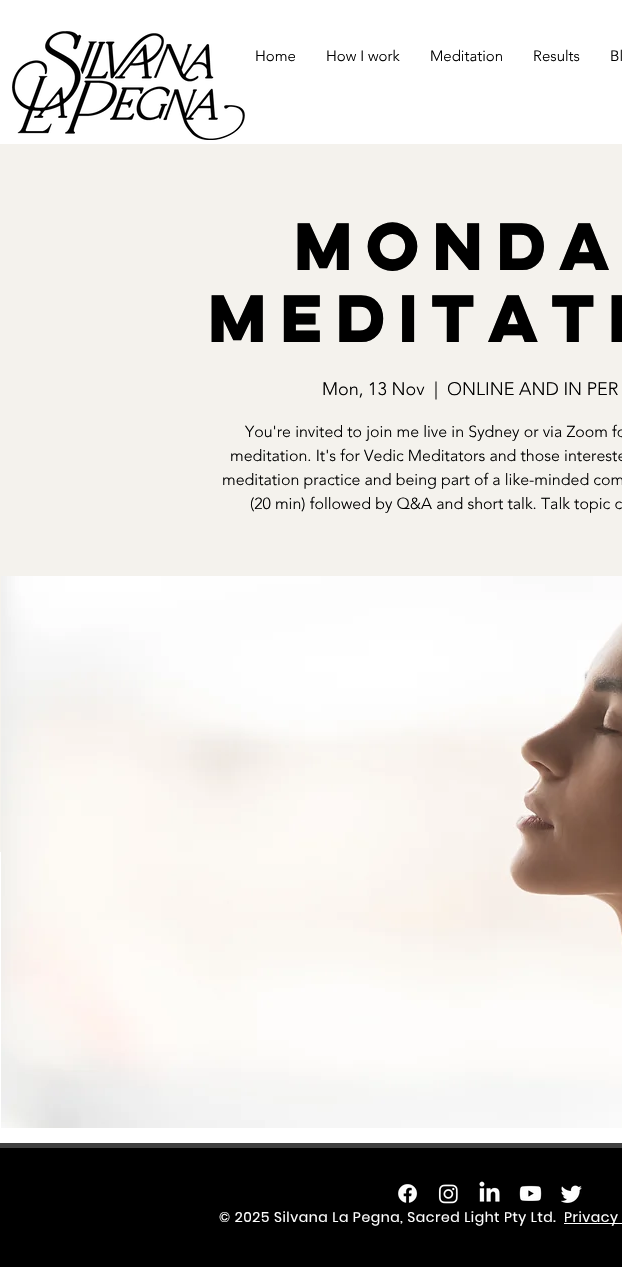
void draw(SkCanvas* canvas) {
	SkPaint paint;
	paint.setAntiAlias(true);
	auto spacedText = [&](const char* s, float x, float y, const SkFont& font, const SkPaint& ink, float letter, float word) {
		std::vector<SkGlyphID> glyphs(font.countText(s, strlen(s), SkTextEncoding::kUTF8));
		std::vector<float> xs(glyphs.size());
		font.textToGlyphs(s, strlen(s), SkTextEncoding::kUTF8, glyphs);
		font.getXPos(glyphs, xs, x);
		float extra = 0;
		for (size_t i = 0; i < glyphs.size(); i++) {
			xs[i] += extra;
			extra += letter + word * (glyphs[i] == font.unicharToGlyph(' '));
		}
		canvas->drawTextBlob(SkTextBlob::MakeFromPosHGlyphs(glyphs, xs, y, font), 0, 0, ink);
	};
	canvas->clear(0xffffffff);
	canvas->drawImageRect(SkImages::DeferredFromEncodedData(SkData::MakeFromFileName("img1.png")), SkRect::MakeXYWH(12, 31, 233, 109), SkSamplingOptions());
	SkFont f1(fontMgr->matchFamilyStyle("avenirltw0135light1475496", SkFontStyle(300, SkFontStyle::kNormal_Width, SkFontStyle::kUpright_Slant)), 15);
	f1.setSubpixel(true);
	paint.setColor(0xff000000);
	canvas->drawString("Home", 255, 61, f1, paint);
	canvas->drawString("How I work", 326, 61, f1, paint);
	canvas->drawString("Meditation", 430, 61, f1, paint);
	canvas->drawString("Results", 533, 61, f1, paint);
	canvas->drawString("Bl", 610, 61, f1, paint);
	paint.setColor(0xfff4f2ed);
	canvas->drawRect(SkRect::MakeXYWH(0, 144, 622, 708), paint);
	SkFont f2(fontMgr->matchFamilyStyle("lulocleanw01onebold", SkFontStyle::Bold()), 60);
	f2.setSubpixel(true);
	paint.setColor(0xff000000);
	canvas->drawString("Monda", 294, 270, f2, paint);
	canvas->drawString("Meditati", 208, 342, f2, paint);
	SkFont f3(fontMgr->matchFamilyStyle("avenirltw0135light1475496", SkFontStyle(300, SkFontStyle::kNormal_Width, SkFontStyle::kUpright_Slant)), 18);
	f3.setSubpixel(true);
	canvas->drawString("Mon, 13 Nov", 322, 395, f3, paint);
	canvas->drawString("|", 434, 395, f3, paint);
	canvas->drawString("ONLINE AND IN PER", 447, 395, f3, paint);
	SkFont f4(fontMgr->matchFamilyStyle("avenirltw0135light1475496", SkFontStyle(300, SkFontStyle::kNormal_Width, SkFontStyle::kUpright_Slant)), 16);
	f4.setSubpixel(true);
	canvas->drawString("You're invited to join me live in Sydney or via Zoom fo", 245, 437, f4, paint);
	canvas->drawString("meditation. It's for Vedic Meditators and those intereste", 230, 461, f4, paint);
	canvas->drawString("meditation practice and being part of a like-minded com", 222, 485, f4, paint);
	canvas->drawString("(20 min) followed by Q&A and short talk. Talk topic c", 250, 509, f4, paint);
	canvas->drawImageRect(SkImages::DeferredFromEncodedData(SkData::MakeFromFileName("img2.png")), SkRect::MakeXYWH(1, 576, 621, 552), SkSamplingOptions());
	paint.setColor(0xff404040);
	canvas->drawRect(SkRect::MakeXYWH(0, 1143, 622, 5), paint);
	paint.setColor(0xff000000);
	canvas->drawRect(SkRect::MakeXYWH(0, 1148, 622, 119), paint);
	canvas->drawImageRect(SkImages::DeferredFromEncodedData(SkData::MakeFromFileName("img3.png")), SkRect::MakeXYWH(398, 1184, 20, 19), SkSamplingOptions());
	canvas->drawImageRect(SkImages::DeferredFromEncodedData(SkData::MakeFromFileName("img4.png")), SkRect::MakeXYWH(438, 1184, 20, 20), SkSamplingOptions());
	canvas->drawImageRect(SkImages::DeferredFromEncodedData(SkData::MakeFromFileName("img5.png")), SkRect::MakeXYWH(479, 1181, 21, 21), SkSamplingOptions());
	canvas->drawImageRect(SkImages::DeferredFromEncodedData(SkData::MakeFromFileName("img6.png")), SkRect::MakeXYWH(519, 1185, 23, 16), SkSamplingOptions());
	canvas->drawImageRect(SkImages::DeferredFromEncodedData(SkData::MakeFromFileName("img7.png")), SkRect::MakeXYWH(561, 1185, 21, 18), SkSamplingOptions());
	SkFont f5(fontMgr->matchFamilyStyle("Poppins", SkFontStyle::Normal()), 14);
	f5.setSubpixel(true);
	paint.setColor(0xffffffff);
	spacedText("© 2025 Silvana La Pegna, Sacred Light Pty Ltd.", 219, 1222, f5, paint, 0.55, 0);
	canvas->drawRect(SkRect::MakeXYWH(564, 1223, 58, 1), paint);
	spacedText("Privacy", 564, 1222, f5, paint, 0.55, 0);
}
